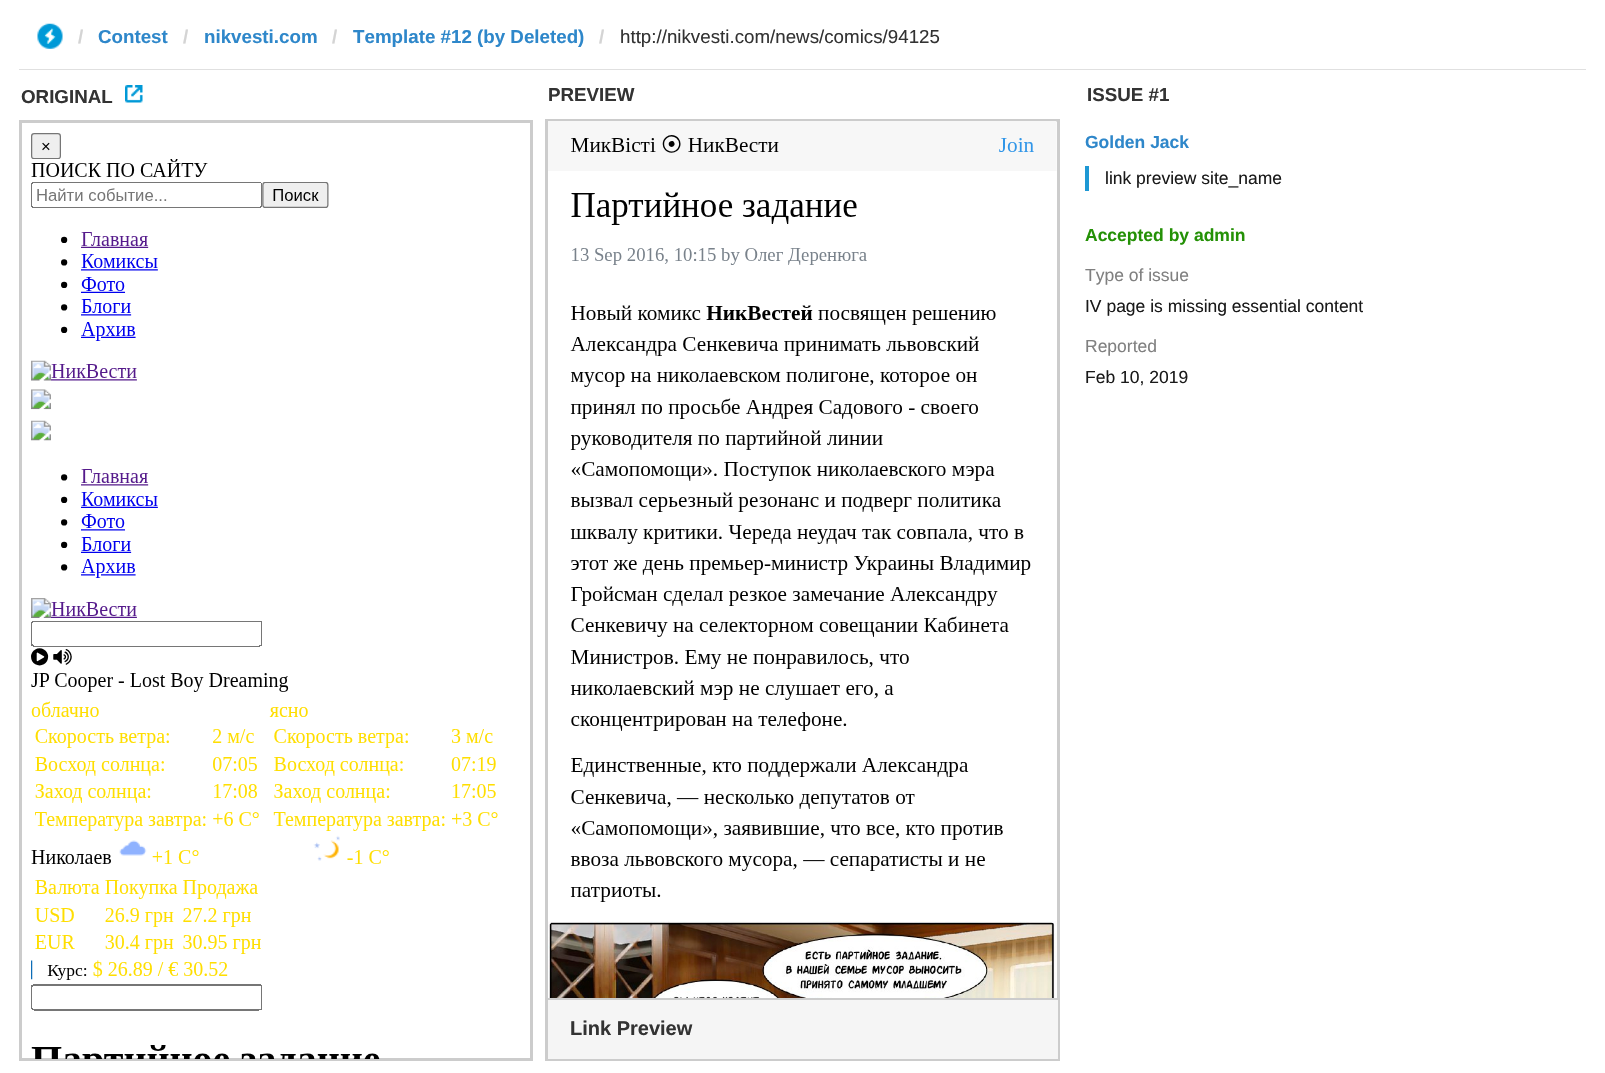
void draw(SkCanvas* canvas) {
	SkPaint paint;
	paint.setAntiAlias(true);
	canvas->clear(0xffffffff);
	paint.setColor(0xffe0e0e0);
	canvas->drawRect(SkRect::MakeXYWH(19, 69, 1567, 1), paint);
	canvas->drawImageRect(SkImages::DeferredFromEncodedData(SkData::MakeFromFileName("img1.png")), SkRect::MakeXYWH(37, 23, 26, 26), SkSamplingOptions());
	SkFont f1(fontMgr->matchFamilyStyle("Liberation Sans", SkFontStyle::Bold()), 18.75);
	f1.setSubpixel(true);
	paint.setColor(0xffd4d4d4);
	canvas->drawString("/", 78, 43, f1, paint);
	paint.setColor(0xff2e87ca);
	canvas->drawString("Contest", 98, 43, f1, paint);
	paint.setColor(0xffd4d4d4);
	canvas->drawString("/", 183, 43, f1, paint);
	paint.setColor(0xff2e87ca);
	canvas->drawString("nikvesti.com", 204, 43, f1, paint);
	paint.setColor(0xffd4d4d4);
	canvas->drawString("/", 332, 43, f1, paint);
	paint.setColor(0xff2e87ca);
	canvas->drawString("Template #12 (by Deleted)", 353, 43, f1, paint);
	paint.setColor(0xffd4d4d4);
	canvas->drawString("/", 599, 43, f1, paint);
	SkFont f2(fontMgr->matchFamilyStyle("Liberation Sans", SkFontStyle::Normal()), 18.75);
	f2.setSubpixel(true);
	paint.setColor(0xff333333);
	canvas->drawString("http://nikvesti.com/news/comics/94125", 620, 43, f2, paint);
	canvas->drawString("ORIGINAL", 21, 103, f1, paint);
	canvas->drawImageRect(SkImages::DeferredFromEncodedData(SkData::MakeFromFileName("img2.png")), SkRect::MakeXYWH(125, 85, 18, 18), SkSamplingOptions());
	paint.setStroke(true);
	paint.setStrokeWidth(3);
	paint.setColor(0xffcccccc);
	canvas->drawRect(SkRect::MakeXYWH(20.5, 121.5, 511, 938), paint);
	canvas->drawImageRect(SkImages::DeferredFromEncodedData(SkData::MakeFromFileName("img3.png")), SkRect::MakeXYWH(31, 133, 467, 926), SkSamplingOptions());
	paint.setStroke(false);
	paint.setColor(0xff333333);
	canvas->drawString("PREVIEW", 548, 101, f1, paint);
	paint.setStroke(true);
	paint.setColor(0xffcccccc);
	canvas->drawRect(SkRect::MakeXYWH(546.5, 120.5, 512, 939), paint);
	canvas->drawImageRect(SkImages::DeferredFromEncodedData(SkData::MakeFromFileName("img4.png")), SkRect::MakeXYWH(548, 121, 509, 877), SkSamplingOptions());
	paint.setStroke(false);
	canvas->drawRect(SkRect::MakeXYWH(548, 998, 510, 2), paint);
	paint.setColor(0xfff5f5f5);
	canvas->drawRect(SkRect::MakeXYWH(548, 1000, 510, 59), paint);
	SkFont f3(fontMgr->matchFamilyStyle("Liberation Sans", SkFontStyle::Bold()), 20);
	f3.setSubpixel(true);
	paint.setColor(0xff333333);
	canvas->drawString("Link Preview", 570, 1035, f3, paint);
	canvas->drawString("ISSUE #1", 1087, 101, f1, paint);
	SkFont f4(fontMgr->matchFamilyStyle("Liberation Sans", SkFontStyle::Bold()), 17.5);
	f4.setSubpixel(true);
	paint.setColor(0xff2e87ca);
	canvas->drawString("Golden Jack", 1085, 148, f4, paint);
	paint.setColor(0xff1e98d4);
	canvas->drawRect(SkRect::MakeXYWH(1085, 166, 4, 25), paint);
	SkFont f5(fontMgr->matchFamilyStyle("Liberation Sans", SkFontStyle::Normal()), 17.5);
	f5.setSubpixel(true);
	paint.setColor(0xff1a1a1a);
	canvas->drawString("link preview site_name", 1105, 184, f5, paint);
	paint.setColor(0xff249106);
	canvas->drawString("Accepted by admin", 1085, 241, f4, paint);
	paint.setColor(0xff808080);
	canvas->drawString("Type of issue", 1085, 281, f5, paint);
	paint.setColor(0xff1a1a1a);
	canvas->drawString("IV page is missing essential content", 1085, 312, f5, paint);
	paint.setColor(0xff808080);
	canvas->drawString("Reported", 1085, 352, f5, paint);
	paint.setColor(0xff1a1a1a);
	canvas->drawString("Feb 10, 2019", 1085, 383, f5, paint);
}
